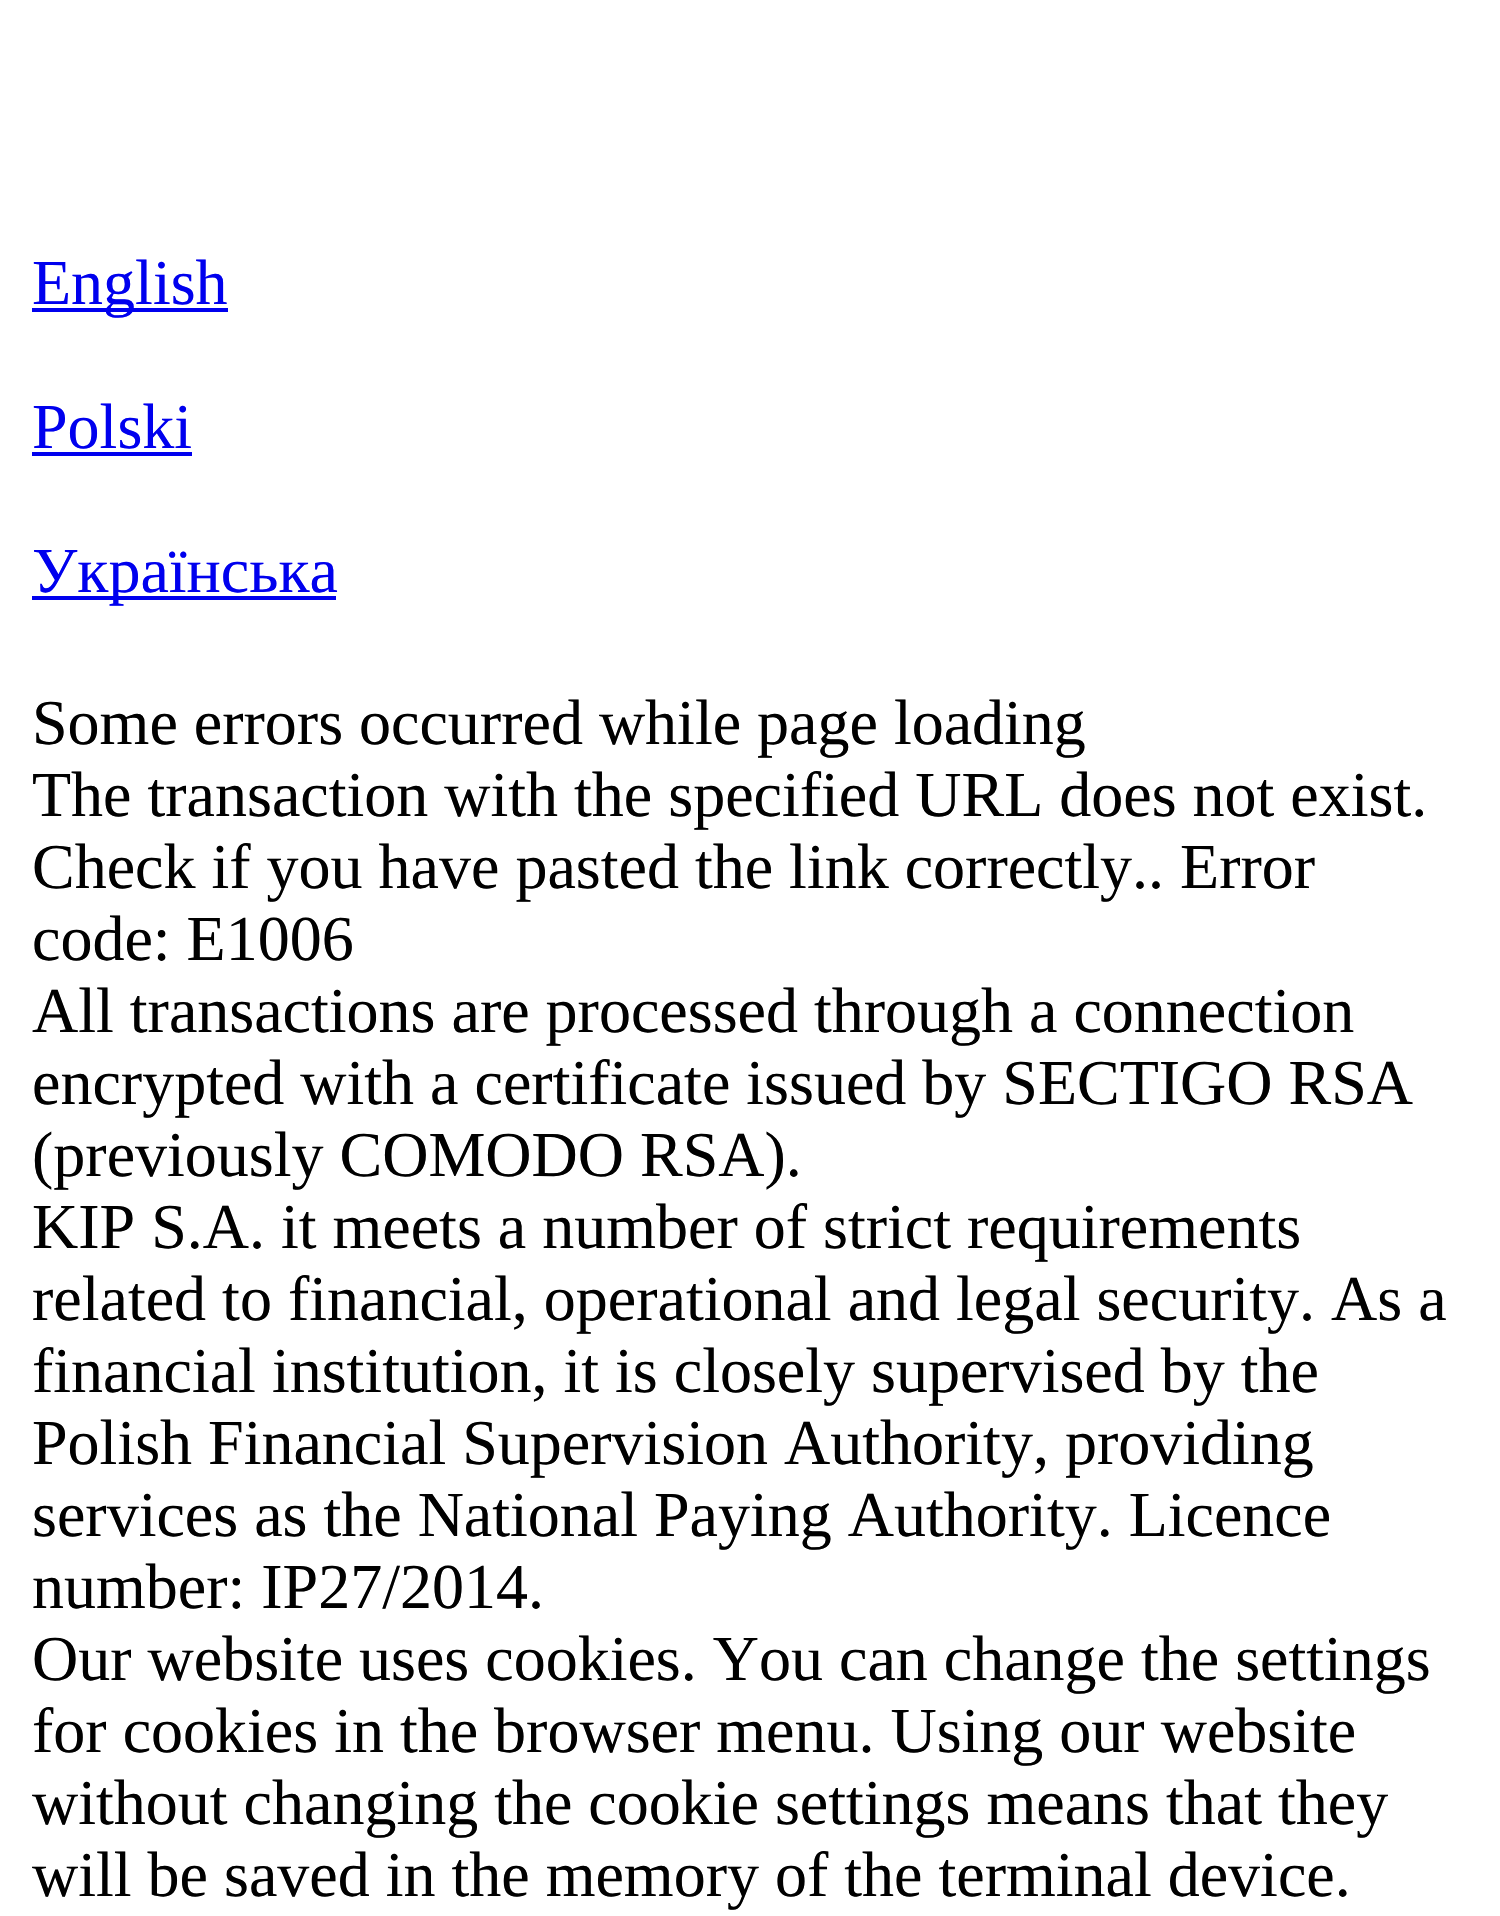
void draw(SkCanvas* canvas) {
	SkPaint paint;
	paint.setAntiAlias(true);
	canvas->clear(0xffffffff);
	paint.setColor(0xff0000ee);
	canvas->drawRect(SkRect::MakeXYWH(32, 308, 196, 4), paint);
	SkFont f1(fontMgr->matchFamilyStyle("Liberation Serif", SkFontStyle::Normal()), 64);
	f1.setSubpixel(true);
	canvas->drawString("English", 32, 304, f1, paint);
	canvas->drawString("Polski", 32, 448, f1, paint);
	canvas->drawRect(SkRect::MakeXYWH(32, 452, 160, 4), paint);
	canvas->drawRect(SkRect::MakeXYWH(32, 596, 304, 4), paint);
	canvas->drawString("Українська", 32, 592, f1, paint);
	paint.setColor(0xff000000);
	canvas->drawString("Some errors occurred while page loading", 32, 744, f1, paint);
	canvas->drawString("The transaction with the specified URL does not exist.", 32, 816, f1, paint);
	canvas->drawString("Check if you have pasted the link correctly.. Error", 32, 888, f1, paint);
	canvas->drawString("code: E1006", 32, 960, f1, paint);
	canvas->drawString("All transactions are processed through a connection", 32, 1032, f1, paint);
	canvas->drawString("encrypted with a certificate issued by SECTIGO RSA", 32, 1104, f1, paint);
	canvas->drawString("(previously COMODO RSA).", 32, 1176, f1, paint);
	canvas->drawString("KIP S.A. it meets a number of strict requirements", 32, 1248, f1, paint);
	canvas->drawString("related to financial, operational and legal security. As a", 32, 1320, f1, paint);
	canvas->drawString("financial institution, it is closely supervised by the", 32, 1392, f1, paint);
	canvas->drawString("Polish Financial Supervision Authority, providing", 32, 1464, f1, paint);
	canvas->drawString("services as the National Paying Authority. Licence", 32, 1536, f1, paint);
	canvas->drawString("number: IP27/2014.", 32, 1608, f1, paint);
	canvas->drawString("Our website uses cookies. You can change the settings", 32, 1680, f1, paint);
	canvas->drawString("for cookies in the browser menu. Using our website", 32, 1752, f1, paint);
	canvas->drawString("without changing the cookie settings means that they", 32, 1824, f1, paint);
	canvas->drawString("will be saved in the memory of the terminal device.", 32, 1896, f1, paint);
}
